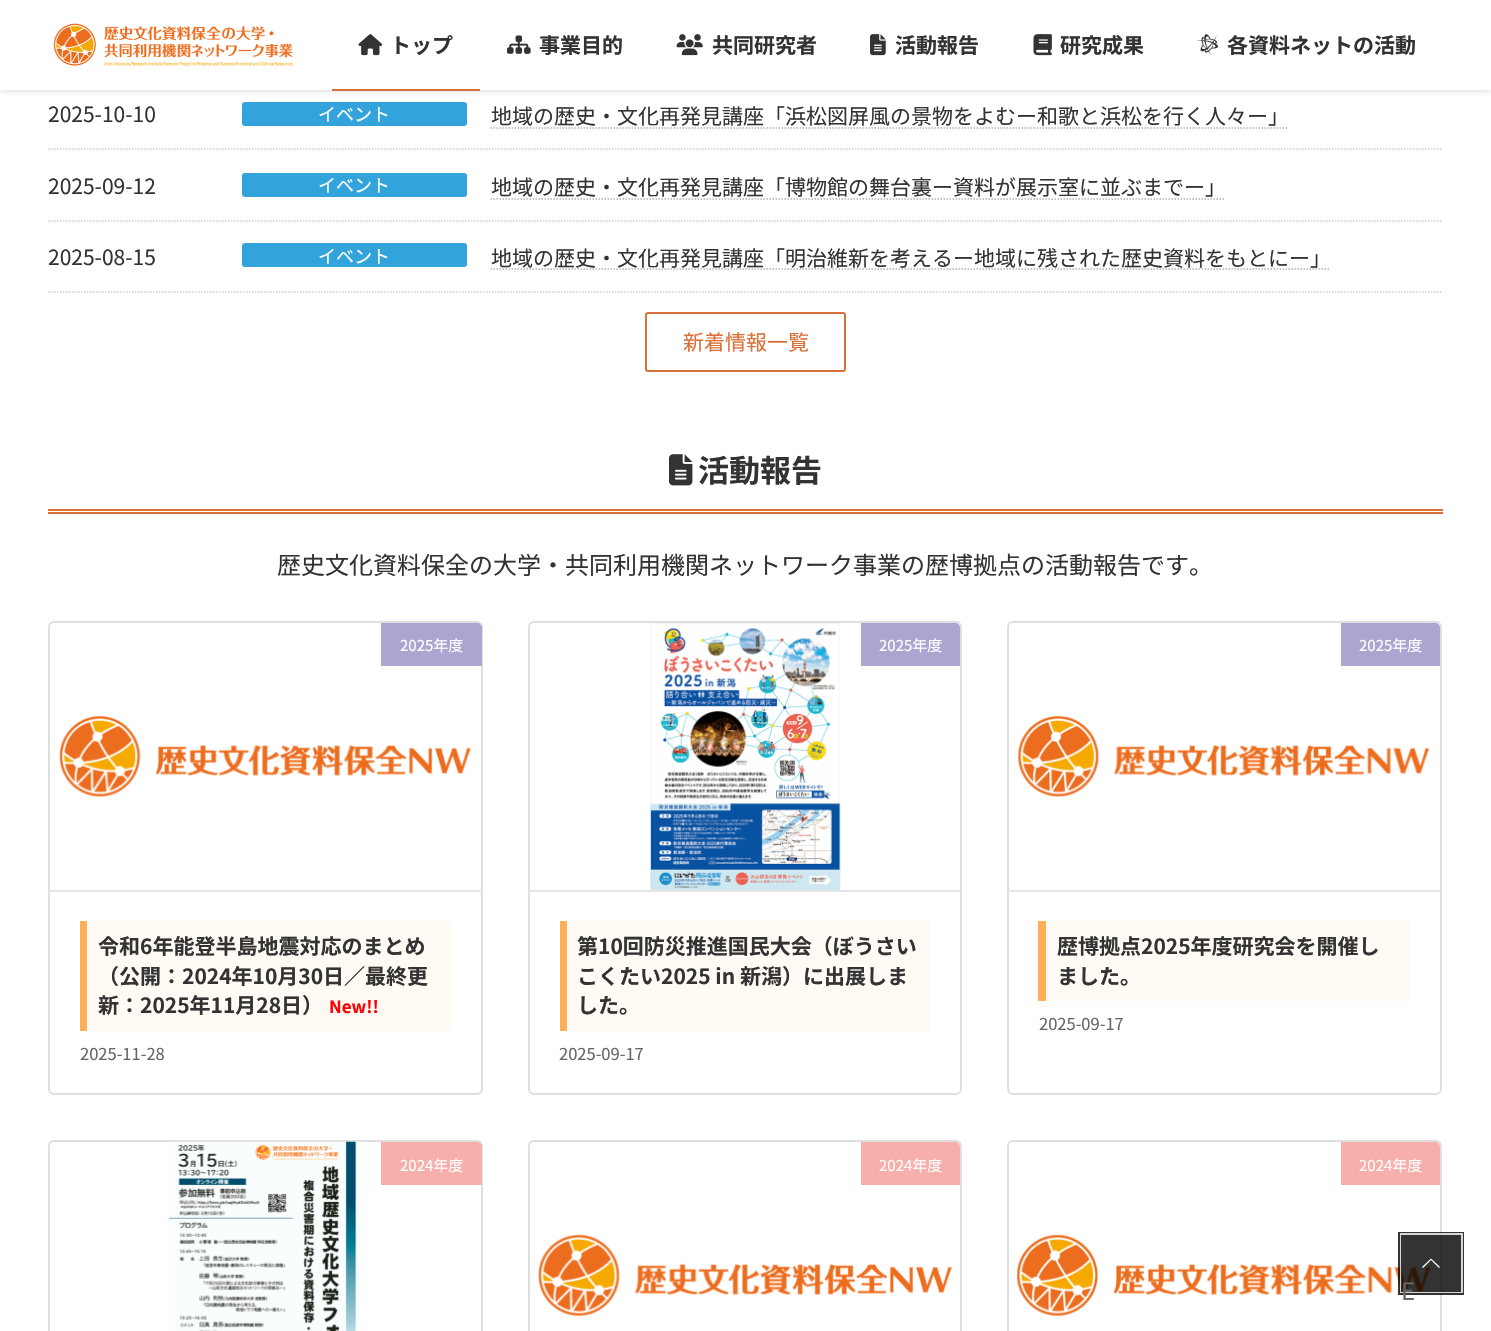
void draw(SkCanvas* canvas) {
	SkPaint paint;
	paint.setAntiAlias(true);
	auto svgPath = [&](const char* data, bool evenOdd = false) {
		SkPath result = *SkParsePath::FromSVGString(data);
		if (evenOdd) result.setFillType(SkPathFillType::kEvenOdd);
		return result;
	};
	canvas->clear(0xffffffff);
	paint.setColor(0x1a000000);
	paint.setMaskFilter(SkMaskFilter::MakeBlur(kNormal_SkBlurStyle, 2));
	canvas->drawRect(SkRect::MakeXYWH(0, 2, 1491, 90), paint);
	paint.setMaskFilter(nullptr);
	paint.setColor(0xffffffff);
	canvas->drawRect(SkRect::MakeXYWH(0, 0, 1491, 90), paint);
	canvas->drawImageRect(SkImages::DeferredFromEncodedData(SkData::MakeFromFileName("img1.png")), SkRect::MakeXYWH(53, 23, 240, 44), SkSamplingOptions());
	canvas->drawImageRect(SkImages::DeferredFromEncodedData(SkData::MakeFromFileName("img2.png")), SkRect::MakeXYWH(358, 34, 25, 22), SkSamplingOptions());
	SkFont f1(fontMgr->matchFamilyStyle("Noto Sans JP", SkFontStyle::Bold()), 21);
	f1.setSubpixel(true);
	paint.setColor(0xff333333);
	canvas->drawString("トップ", 390, 53, f1, paint);
	paint.setColor(0xffdb6f39);
	canvas->drawRect(SkRect::MakeXYWH(332, 89, 148, 2), paint);
	canvas->drawImageRect(SkImages::DeferredFromEncodedData(SkData::MakeFromFileName("img3.png")), SkRect::MakeXYWH(507, 35, 24, 19), SkSamplingOptions());
	paint.setColor(0xff333333);
	canvas->drawString("事業目的", 539, 53, f1, paint);
	canvas->drawImageRect(SkImages::DeferredFromEncodedData(SkData::MakeFromFileName("img4.png")), SkRect::MakeXYWH(676, 34, 27, 22), SkSamplingOptions());
	canvas->drawString("共同研究者", 712, 53, f1, paint);
	canvas->drawImageRect(SkImages::DeferredFromEncodedData(SkData::MakeFromFileName("img5.png")), SkRect::MakeXYWH(870, 34, 16, 22), SkSamplingOptions());
	canvas->drawString("活動報告", 895, 53, f1, paint);
	canvas->drawImageRect(SkImages::DeferredFromEncodedData(SkData::MakeFromFileName("img6.png")), SkRect::MakeXYWH(1033, 34, 19, 22), SkSamplingOptions());
	canvas->drawString("研究成果", 1060, 53, f1, paint);
	canvas->drawImageRect(SkImages::DeferredFromEncodedData(SkData::MakeFromFileName("img7.png")), SkRect::MakeXYWH(1197, 34, 21, 21), SkSamplingOptions());
	canvas->drawString("各資料ネットの活動", 1227, 53, f1, paint);
	paint.setStroke(true);
	paint.setStrokeWidth(1.5);
	paint.setColor(0xffcccccc);
	paint.setPathEffect(SkDashPathEffect::Make({{1.5f, 1.5f}}, 0));
	canvas->drawPath(svgPath("M48 149H1443"), paint);
	paint.setPathEffect(nullptr);
	SkFont f2(fontMgr->matchFamilyStyle("Noto Sans JP", SkFontStyle::Normal()), 21);
	f2.setSubpixel(true);
	paint.setStroke(false);
	paint.setColor(0xff333333);
	canvas->drawString("2025-10-10", 48, 122, f2, paint);
	paint.setColor(0xff32a3db);
	canvas->drawRoundRect(SkRect::MakeXYWH(242, 102, 225, 24), 3, 3, paint);
	SkFont f3(fontMgr->matchFamilyStyle("Noto Sans JP", SkFontStyle::Normal()), 18);
	f3.setSubpixel(true);
	paint.setColor(0xffffffff);
	canvas->drawString("イベント", 318, 121, f3, paint);
	paint.setColor(0xff333333);
	canvas->drawString("地域の歴史・文化再発見講座「浜松図屏風の景物をよむー和歌と浜松を行く人々ー」", 491, 124, f2, paint);
	paint.setStroke(true);
	paint.setColor(0xffb3b3b3);
	paint.setPathEffect(SkDashPathEffect::Make({{1.5f, 1.5f}}, 0));
	canvas->drawPath(svgPath("M490.5 128H1288.5"), paint);
	paint.setPathEffect(nullptr);
	paint.setColor(0xffcccccc);
	paint.setPathEffect(SkDashPathEffect::Make({{1.5f, 1.5f}}, 0));
	canvas->drawPath(svgPath("M48 221H1443"), paint);
	paint.setPathEffect(nullptr);
	paint.setStroke(false);
	paint.setColor(0xff333333);
	canvas->drawString("2025-09-12", 48, 194, f2, paint);
	paint.setColor(0xff32a3db);
	canvas->drawRoundRect(SkRect::MakeXYWH(242, 173, 225, 24), 3, 3, paint);
	paint.setColor(0xffffffff);
	canvas->drawString("イベント", 318, 192, f3, paint);
	paint.setColor(0xff333333);
	canvas->drawString("地域の歴史・文化再発見講座「博物館の舞台裏ー資料が展示室に並ぶまでー」", 491, 195, f2, paint);
	paint.setStroke(true);
	paint.setColor(0xffb3b3b3);
	paint.setPathEffect(SkDashPathEffect::Make({{1.5f, 1.5f}}, 0));
	canvas->drawPath(svgPath("M490.5 199H1225.5"), paint);
	paint.setPathEffect(nullptr);
	paint.setColor(0xffcccccc);
	paint.setPathEffect(SkDashPathEffect::Make({{1.5f, 1.5f}}, 0));
	canvas->drawPath(svgPath("M48 292H1443"), paint);
	paint.setPathEffect(nullptr);
	paint.setStroke(false);
	paint.setColor(0xff333333);
	canvas->drawString("2025-08-15", 48, 265, f2, paint);
	paint.setColor(0xff32a3db);
	canvas->drawRoundRect(SkRect::MakeXYWH(242, 243, 225, 24), 3, 3, paint);
	paint.setColor(0xffffffff);
	canvas->drawString("イベント", 318, 263, f3, paint);
	paint.setColor(0xff333333);
	canvas->drawString("地域の歴史・文化再発見講座「明治維新を考えるー地域に残された歴史資料をもとにー」", 491, 266, f2, paint);
	paint.setStroke(true);
	paint.setColor(0xffb3b3b3);
	paint.setPathEffect(SkDashPathEffect::Make({{1.5f, 1.5f}}, 0));
	canvas->drawPath(svgPath("M490.5 269H1330.5"), paint);
	paint.setPathEffect(nullptr);
	paint.setStrokeWidth(2);
	paint.setColor(0xffdb6f39);
	canvas->drawRoundRect(SkRect::MakeXYWH(646, 313, 199, 58), 2, 2, paint);
	paint.setStroke(false);
	canvas->drawString("新着情報一覧", 683, 350, f2, paint);
	canvas->drawRect(SkRect::MakeXYWH(48, 509, 1395, 2), paint);
	canvas->drawRect(SkRect::MakeXYWH(48, 512, 1395, 2), paint);
	canvas->drawImageRect(SkImages::DeferredFromEncodedData(SkData::MakeFromFileName("img8.png")), SkRect::MakeXYWH(669, 454, 24, 32), SkSamplingOptions());
	SkFont f4(fontMgr->matchFamilyStyle("Noto Sans JP", SkFontStyle::Bold()), 31);
	f4.setSubpixel(true);
	paint.setColor(0xff333333);
	canvas->drawString("活動報告", 698, 482, f4, paint);
	SkFont f5(fontMgr->matchFamilyStyle("Noto Sans JP", SkFontStyle::Normal()), 24);
	f5.setSubpixel(true);
	canvas->drawString("歴史文化資料保全の大学・共同利用機関ネットワーク事業の歴博拠点の活動報告です。", 277, 574, f5, paint);
	paint.setStroke(true);
	paint.setColor(0xffdfdfdf);
	canvas->drawRoundRect(SkRect::MakeXYWH(49, 622, 433, 472), 5, 5, paint);
	canvas->drawImageRect(SkImages::DeferredFromEncodedData(SkData::MakeFromFileName("img9.png")), SkRect::MakeXYWH(59, 715, 412, 82), SkSamplingOptions());
	paint.setStroke(false);
	paint.setColor(0xffe5e5e5);
	canvas->drawRect(SkRect::MakeXYWH(50, 890, 432, 2), paint);
	paint.setColor(0xffaaa5d1);
	canvas->drawPath(svgPath("M381 623H477C480 623 482 625 482 628V666H381Z"), paint);
	SkFont f6(fontMgr->matchFamilyStyle("Noto Sans JP", SkFontStyle::Normal()), 15);
	f6.setSubpixel(true);
	paint.setColor(0xffffffff);
	canvas->drawString("2025年度", 400, 651, f6, paint);
	paint.setColor(0xfffffaf4);
	canvas->drawRect(SkRect::MakeXYWH(87, 921, 365, 110), paint);
	paint.setColor(0xffffaf58);
	canvas->drawRect(SkRect::MakeXYWH(80, 921, 7, 110), paint);
	paint.setColor(0xff333333);
	canvas->drawString("令和6年能登半島地震対応のまとめ", 98, 954, f1, paint);
	canvas->drawString("（公開：2024年10月30日／最終更", 98, 984, f1, paint);
	canvas->drawString("新：2025年11月28日）", 98, 1013, f1, paint);
	SkFont f7(fontMgr->matchFamilyStyle("Noto Sans JP", SkFontStyle::Bold()), 17);
	f7.setSubpixel(true);
	paint.setColor(0xffff0000);
	canvas->drawString("New!!", 329, 1013, f7, paint);
	SkFont f8(fontMgr->matchFamilyStyle("Noto Sans JP", SkFontStyle::Normal()), 16.5);
	f8.setSubpixel(true);
	paint.setColor(0xff666666);
	canvas->drawString("2025-11-28", 80, 1060, f8, paint);
	paint.setStroke(true);
	paint.setColor(0xffdfdfdf);
	canvas->drawRoundRect(SkRect::MakeXYWH(529, 622, 432, 472), 5, 5, paint);
	canvas->drawImageRect(SkImages::DeferredFromEncodedData(SkData::MakeFromFileName("img10.png")), SkRect::MakeXYWH(650, 622, 191, 268), SkSamplingOptions());
	paint.setStroke(false);
	paint.setColor(0xffe5e5e5);
	canvas->drawRect(SkRect::MakeXYWH(530, 890, 430, 2), paint);
	paint.setColor(0xffaaa5d1);
	canvas->drawPath(svgPath("M861 623H955C958 623 960 625 960 628V666H861Z"), paint);
	paint.setColor(0xffffffff);
	canvas->drawString("2025年度", 879, 651, f6, paint);
	paint.setColor(0xfffffaf4);
	canvas->drawRect(SkRect::MakeXYWH(567, 921, 363, 110), paint);
	paint.setColor(0xffffaf58);
	canvas->drawRect(SkRect::MakeXYWH(560, 921, 7, 110), paint);
	paint.setColor(0xff333333);
	canvas->drawString("第10回防災推進国民大会（ぼうさい", 577, 954, f1, paint);
	canvas->drawString("こくたい2025 in 新潟）に出展しま", 577, 984, f1, paint);
	canvas->drawString("した。", 577, 1013, f1, paint);
	paint.setColor(0xff666666);
	canvas->drawString("2025-09-17", 559, 1060, f8, paint);
	paint.setStroke(true);
	paint.setColor(0xffdfdfdf);
	canvas->drawRoundRect(SkRect::MakeXYWH(1008, 622, 433, 472), 5, 5, paint);
	canvas->drawImageRect(SkImages::DeferredFromEncodedData(SkData::MakeFromFileName("img11.png")), SkRect::MakeXYWH(1018, 715, 412, 82), SkSamplingOptions());
	paint.setStroke(false);
	paint.setColor(0xffe5e5e5);
	canvas->drawRect(SkRect::MakeXYWH(1008, 890, 432, 2), paint);
	paint.setColor(0xffaaa5d1);
	canvas->drawPath(svgPath("M1341 623H1435C1438 623 1440 625 1440 628V666H1341Z"), paint);
	paint.setColor(0xffffffff);
	canvas->drawString("2025年度", 1359, 651, f6, paint);
	paint.setColor(0xfffffaf4);
	canvas->drawRect(SkRect::MakeXYWH(1046, 921, 364, 80), paint);
	paint.setColor(0xffffaf58);
	canvas->drawRect(SkRect::MakeXYWH(1038, 921, 8, 80), paint);
	paint.setColor(0xff333333);
	canvas->drawString("歴博拠点2025年度研究会を開催し", 1057, 954, f1, paint);
	canvas->drawString("ました。", 1057, 984, f1, paint);
	paint.setColor(0xff666666);
	canvas->drawString("2025-09-17", 1039, 1030, f8, paint);
	paint.setStroke(true);
	paint.setColor(0xffdfdfdf);
	canvas->drawRoundRect(SkRect::MakeXYWH(49, 1141, 433, 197), 5, 5, paint);
	canvas->drawImageRect(SkImages::DeferredFromEncodedData(SkData::MakeFromFileName("img12.png")), SkRect::MakeXYWH(168, 1141, 193, 190), SkSamplingOptions());
	paint.setStroke(false);
	paint.setColor(0xfff6afaa);
	canvas->drawPath(svgPath("M381 1142H477C480 1142 482 1144 482 1147V1185H381Z"), paint);
	paint.setColor(0xffffffff);
	canvas->drawString("2024年度", 400, 1171, f6, paint);
	paint.setStroke(true);
	paint.setColor(0xffdfdfdf);
	canvas->drawRoundRect(SkRect::MakeXYWH(529, 1141, 432, 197), 5, 5, paint);
	canvas->drawImageRect(SkImages::DeferredFromEncodedData(SkData::MakeFromFileName("img13.png")), SkRect::MakeXYWH(538, 1234, 414, 83), SkSamplingOptions());
	paint.setStroke(false);
	paint.setColor(0xfff6afaa);
	canvas->drawPath(svgPath("M861 1142H955C958 1142 960 1144 960 1147V1185H861Z"), paint);
	paint.setColor(0xffffffff);
	canvas->drawString("2024年度", 879, 1171, f6, paint);
	paint.setStroke(true);
	paint.setColor(0xffdfdfdf);
	canvas->drawRoundRect(SkRect::MakeXYWH(1008, 1141, 433, 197), 5, 5, paint);
	canvas->drawImageRect(SkImages::DeferredFromEncodedData(SkData::MakeFromFileName("img14.png")), SkRect::MakeXYWH(1017, 1234, 414, 83), SkSamplingOptions());
	paint.setStroke(false);
	paint.setColor(0xfff6afaa);
	canvas->drawPath(svgPath("M1341 1142H1435C1438 1142 1440 1144 1440 1147V1185H1341Z"), paint);
	paint.setColor(0xffffffff);
	canvas->drawString("2024年度", 1359, 1171, f6, paint);
	paint.setStroke(true);
	paint.setStrokeWidth(3);
	paint.setColor(0xcc000000);
	canvas->drawRect(SkRect::MakeXYWH(1399.5, 1233.5, 63, 60), paint);
	paint.setStrokeWidth(2);
	paint.setColor(0xccffffff);
	canvas->drawRect(SkRect::MakeXYWH(1401, 1234, 61, 58), paint);
	paint.setStroke(false);
	paint.setColor(0xcc000000);
	canvas->drawRect(SkRect::MakeXYWH(1401, 1235, 60, 57), paint);
	paint.setColor(0xffffffff);
	canvas->drawPath(svgPath("M1440 1267L1439 1268L1431 1260L1423 1268L1422 1267L1431 1258.5Z"), paint);
	paint.setColor(0xff6d6561);
	canvas->drawString("E", 1401, 1300, f5, paint);
}
